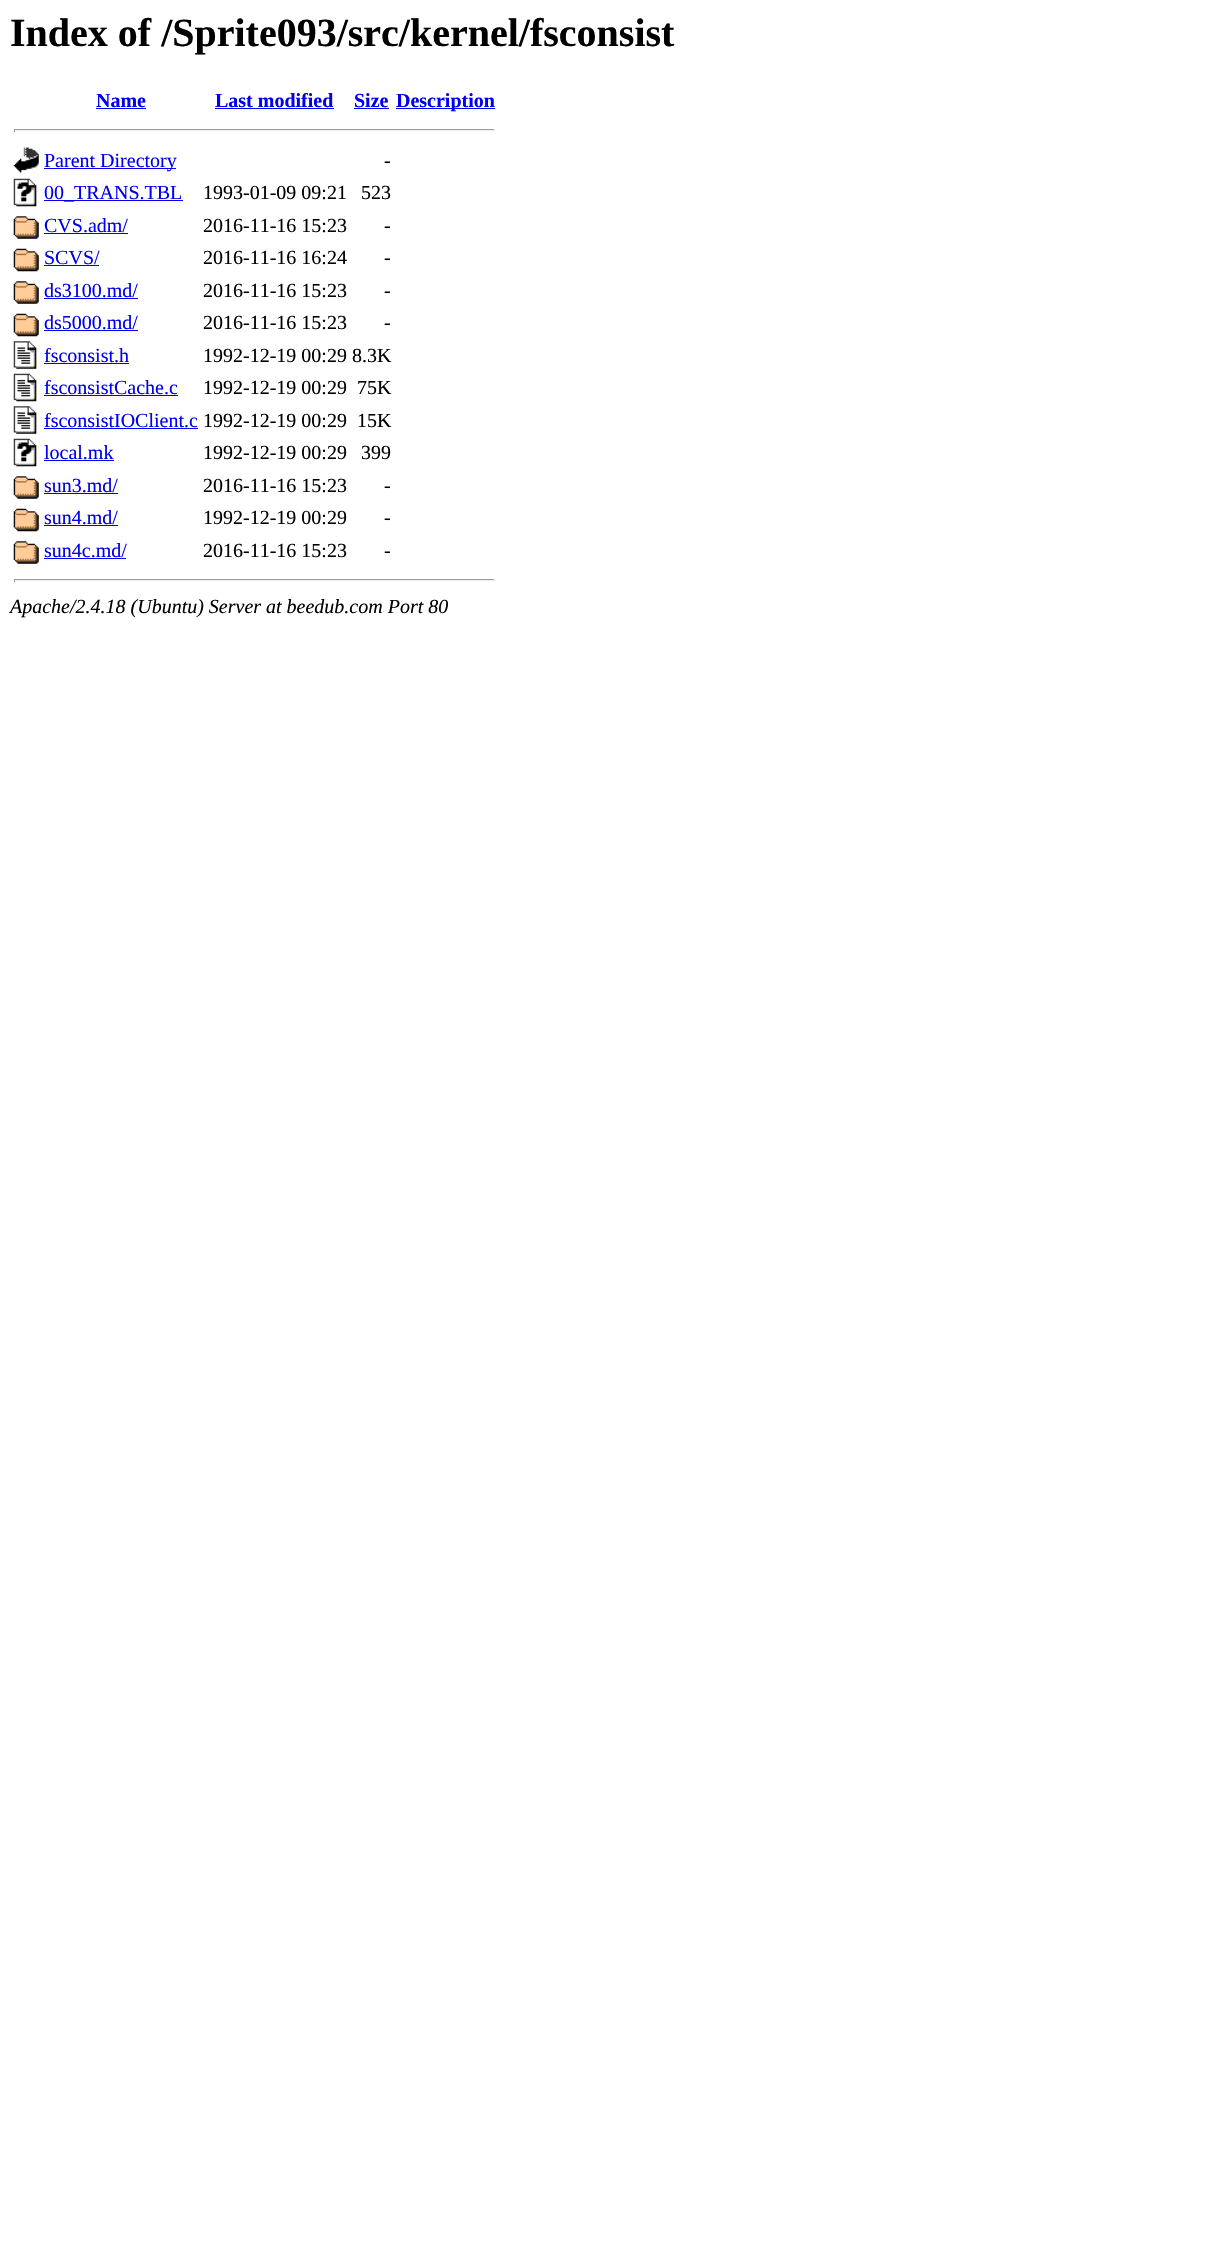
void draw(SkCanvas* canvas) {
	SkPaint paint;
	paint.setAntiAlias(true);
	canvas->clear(0xffffffff);
	SkFont f1(fontMgr->matchFamilyStyle("Liberation Serif", SkFontStyle::Bold()), 40);
	f1.setSubpixel(true);
	paint.setColor(0xff000000);
	canvas->drawString("Index of /Sprite093/src/kernel/fsconsist", 10, 46, f1, paint);
	SkFont f2(fontMgr->matchFamilyStyle("Liberation Serif", SkFontStyle::Bold()), 20);
	f2.setSubpixel(true);
	paint.setColor(0xff0000ee);
	canvas->drawString("Name", 96, 107, f2, paint);
	canvas->drawRect(SkRect::MakeXYWH(96, 108, 50, 1), paint);
	canvas->drawString("Last modified", 215, 107, f2, paint);
	canvas->drawRect(SkRect::MakeXYWH(215, 108, 119, 1), paint);
	canvas->drawString("Size", 354, 107, f2, paint);
	canvas->drawRect(SkRect::MakeXYWH(354, 108, 35, 1), paint);
	canvas->drawRect(SkRect::MakeXYWH(396, 108, 99, 1), paint);
	canvas->drawString("Description", 396, 107, f2, paint);
	paint.setColor(0xff9f9f9f);
	canvas->drawRect(SkRect::MakeXYWH(14, 129, 481, 1), paint);
	paint.setColor(0xffeeeeee);
	canvas->drawRect(SkRect::MakeXYWH(494, 129, 1, 3), paint);
	canvas->drawRect(SkRect::MakeXYWH(14, 130, 481, 1), paint);
	paint.setColor(0xff9f9f9f);
	canvas->drawRect(SkRect::MakeXYWH(14, 129, 1, 3), paint);
	canvas->drawImageRect(SkImages::DeferredFromEncodedData(SkData::MakeFromFileName("img1.png")), SkRect::MakeXYWH(13, 147, 26, 26), SkSamplingOptions());
	paint.setColor(0xff0000ee);
	canvas->drawRect(SkRect::MakeXYWH(44, 168, 132, 1), paint);
	SkFont f3(fontMgr->matchFamilyStyle("Liberation Serif", SkFontStyle::Normal()), 20);
	f3.setSubpixel(true);
	canvas->drawString("Parent Directory", 44, 167, f3, paint);
	paint.setColor(0xff000000);
	canvas->drawString("-", 384, 167, f3, paint);
	canvas->drawImageRect(SkImages::DeferredFromEncodedData(SkData::MakeFromFileName("img2.png")), SkRect::MakeXYWH(13, 178, 24, 29), SkSamplingOptions());
	paint.setColor(0xff0000ee);
	canvas->drawRect(SkRect::MakeXYWH(44, 200, 139, 1), paint);
	canvas->drawString("00_TRANS.TBL", 44, 199, f3, paint);
	paint.setColor(0xff000000);
	canvas->drawString("1993-01-09 09:21", 203, 199, f3, paint);
	canvas->drawString("523", 361, 199, f3, paint);
	canvas->drawImageRect(SkImages::DeferredFromEncodedData(SkData::MakeFromFileName("img3.png")), SkRect::MakeXYWH(13, 216, 26, 23), SkSamplingOptions());
	paint.setColor(0xff0000ee);
	canvas->drawString("CVS.adm/", 44, 232, f3, paint);
	canvas->drawRect(SkRect::MakeXYWH(44, 233, 84, 1), paint);
	paint.setColor(0xff000000);
	canvas->drawString("2016-11-16 15:23", 203, 232, f3, paint);
	canvas->drawString("-", 384, 232, f3, paint);
	canvas->drawImageRect(SkImages::DeferredFromEncodedData(SkData::MakeFromFileName("img4.png")), SkRect::MakeXYWH(13, 248, 26, 24), SkSamplingOptions());
	paint.setColor(0xff0000ee);
	canvas->drawString("SCVS/", 44, 264, f3, paint);
	canvas->drawRect(SkRect::MakeXYWH(44, 265, 55, 1), paint);
	paint.setColor(0xff000000);
	canvas->drawString("2016-11-16 16:24", 203, 264, f3, paint);
	canvas->drawString("-", 384, 264, f3, paint);
	canvas->drawImageRect(SkImages::DeferredFromEncodedData(SkData::MakeFromFileName("img5.png")), SkRect::MakeXYWH(13, 281, 26, 23), SkSamplingOptions());
	paint.setColor(0xff0000ee);
	canvas->drawString("ds3100.md/", 44, 297, f3, paint);
	canvas->drawRect(SkRect::MakeXYWH(44, 298, 94, 1), paint);
	paint.setColor(0xff000000);
	canvas->drawString("2016-11-16 15:23", 203, 297, f3, paint);
	canvas->drawString("-", 384, 297, f3, paint);
	canvas->drawImageRect(SkImages::DeferredFromEncodedData(SkData::MakeFromFileName("img4.png")), SkRect::MakeXYWH(13, 313, 26, 24), SkSamplingOptions());
	paint.setColor(0xff0000ee);
	canvas->drawString("ds5000.md/", 44, 329, f3, paint);
	canvas->drawRect(SkRect::MakeXYWH(44, 330, 94, 1), paint);
	paint.setColor(0xff000000);
	canvas->drawString("2016-11-16 15:23", 203, 329, f3, paint);
	canvas->drawString("-", 384, 329, f3, paint);
	canvas->drawImageRect(SkImages::DeferredFromEncodedData(SkData::MakeFromFileName("img6.png")), SkRect::MakeXYWH(13, 341, 24, 28), SkSamplingOptions());
	paint.setColor(0xff0000ee);
	canvas->drawString("fsconsist.h", 44, 362, f3, paint);
	canvas->drawRect(SkRect::MakeXYWH(44, 363, 85, 1), paint);
	paint.setColor(0xff000000);
	canvas->drawString("1992-12-19 00:29 8.3K", 203, 362, f3, paint);
	canvas->drawImageRect(SkImages::DeferredFromEncodedData(SkData::MakeFromFileName("img7.png")), SkRect::MakeXYWH(13, 373, 24, 29), SkSamplingOptions());
	paint.setColor(0xff0000ee);
	canvas->drawString("fsconsistCache.c", 44, 394, f3, paint);
	canvas->drawRect(SkRect::MakeXYWH(44, 395, 134, 1), paint);
	paint.setColor(0xff000000);
	canvas->drawString("1992-12-19 00:29", 203, 394, f3, paint);
	canvas->drawString("75K", 357, 394, f3, paint);
	canvas->drawImageRect(SkImages::DeferredFromEncodedData(SkData::MakeFromFileName("img6.png")), SkRect::MakeXYWH(13, 406, 24, 28), SkSamplingOptions());
	paint.setColor(0xff0000ee);
	canvas->drawString("fsconsistIOClient.c", 44, 427, f3, paint);
	canvas->drawRect(SkRect::MakeXYWH(44, 428, 154, 1), paint);
	paint.setColor(0xff000000);
	canvas->drawString("1992-12-19 00:29", 203, 427, f3, paint);
	canvas->drawString("15K", 357, 427, f3, paint);
	canvas->drawImageRect(SkImages::DeferredFromEncodedData(SkData::MakeFromFileName("img2.png")), SkRect::MakeXYWH(13, 438, 24, 29), SkSamplingOptions());
	paint.setColor(0xff0000ee);
	canvas->drawString("local.mk", 44, 459, f3, paint);
	canvas->drawRect(SkRect::MakeXYWH(44, 460, 70, 1), paint);
	paint.setColor(0xff000000);
	canvas->drawString("1992-12-19 00:29", 203, 459, f3, paint);
	canvas->drawString("399", 361, 459, f3, paint);
	canvas->drawImageRect(SkImages::DeferredFromEncodedData(SkData::MakeFromFileName("img3.png")), SkRect::MakeXYWH(13, 476, 26, 23), SkSamplingOptions());
	paint.setColor(0xff0000ee);
	canvas->drawString("sun3.md/", 44, 492, f3, paint);
	canvas->drawRect(SkRect::MakeXYWH(44, 493, 74, 1), paint);
	paint.setColor(0xff000000);
	canvas->drawString("2016-11-16 15:23", 203, 492, f3, paint);
	canvas->drawString("-", 384, 492, f3, paint);
	canvas->drawImageRect(SkImages::DeferredFromEncodedData(SkData::MakeFromFileName("img4.png")), SkRect::MakeXYWH(13, 508, 26, 24), SkSamplingOptions());
	paint.setColor(0xff0000ee);
	canvas->drawString("sun4.md/", 44, 524, f3, paint);
	canvas->drawRect(SkRect::MakeXYWH(44, 525, 74, 1), paint);
	paint.setColor(0xff000000);
	canvas->drawString("1992-12-19 00:29", 203, 524, f3, paint);
	canvas->drawString("-", 384, 524, f3, paint);
	canvas->drawImageRect(SkImages::DeferredFromEncodedData(SkData::MakeFromFileName("img3.png")), SkRect::MakeXYWH(13, 541, 26, 23), SkSamplingOptions());
	paint.setColor(0xff0000ee);
	canvas->drawString("sun4c.md/", 44, 557, f3, paint);
	canvas->drawRect(SkRect::MakeXYWH(44, 558, 82, 1), paint);
	paint.setColor(0xff000000);
	canvas->drawString("2016-11-16 15:23", 203, 557, f3, paint);
	canvas->drawString("-", 384, 557, f3, paint);
	paint.setColor(0xff9f9f9f);
	canvas->drawRect(SkRect::MakeXYWH(14, 579, 481, 1), paint);
	paint.setColor(0xffeeeeee);
	canvas->drawRect(SkRect::MakeXYWH(494, 579, 1, 3), paint);
	canvas->drawRect(SkRect::MakeXYWH(14, 580, 481, 1), paint);
	paint.setColor(0xff9f9f9f);
	canvas->drawRect(SkRect::MakeXYWH(14, 579, 1, 3), paint);
	SkFont f4(fontMgr->matchFamilyStyle("Liberation Serif", SkFontStyle::Italic()), 20);
	f4.setSubpixel(true);
	paint.setColor(0xff000000);
	canvas->drawString("Apache/2.4.18 (Ubuntu) Server at beedub.com Port 80", 10, 613, f4, paint);
}
